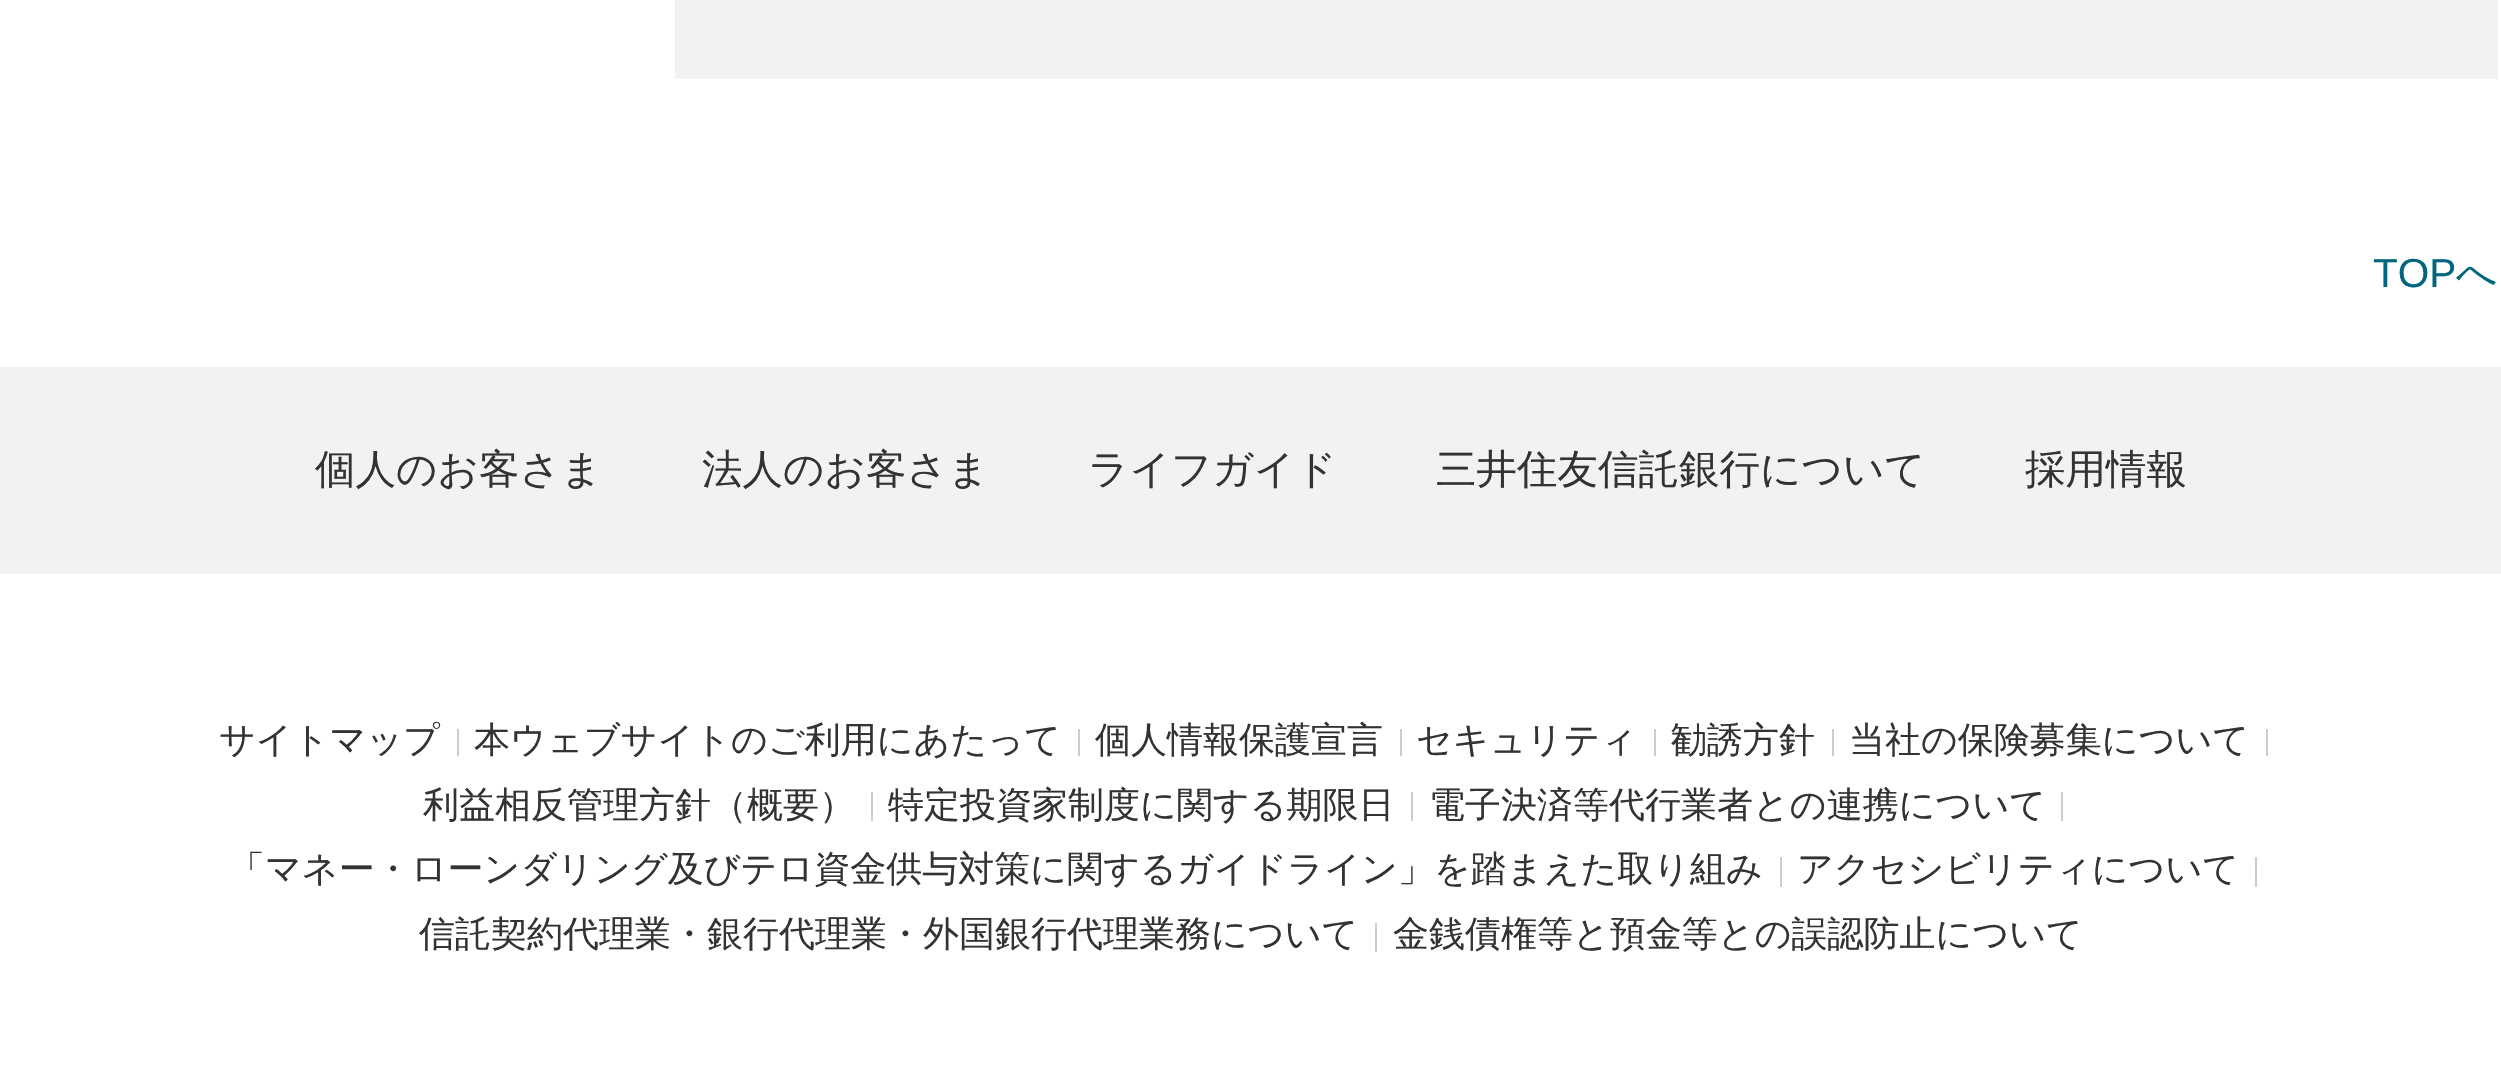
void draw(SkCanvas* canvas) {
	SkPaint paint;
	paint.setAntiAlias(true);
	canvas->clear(0xffffffff);
	paint.setColor(0xfff2f2f2);
	canvas->drawRect(SkRect::MakeXYWH(675, 0, 1823, 79), paint);
	SkFont f1(fontMgr->matchFamilyStyle("Liberation Sans", SkFontStyle::Normal()), 40.5);
	f1.setSubpixel(true);
	paint.setColor(0xff006680);
	canvas->drawString("TOP", 2373, 287, f1, paint);
	SkFont f2(fontMgr->matchFamilyStyle("WenQuanYi Zen Hei", SkFontStyle(500, SkFontStyle::kNormal_Width, SkFontStyle::kUpright_Slant)), 40.5);
	f2.setSubpixel(true);
	canvas->drawString("へ", 2456, 287, f2, paint);
	paint.setColor(0xfff2f2f2);
	canvas->drawRect(SkRect::MakeXYWH(0, 367, 2501, 207), paint);
	paint.setColor(0xff333333);
	canvas->drawString("個人のお客さま", 315, 483, f2, paint);
	canvas->drawString("法人のお客さま", 702, 483, f2, paint);
	canvas->drawString("ライフガイド", 1088, 483, f2, paint);
	canvas->drawString("三井住友信託銀行について", 1436, 483, f2, paint);
	canvas->drawString("採用情報", 2025, 483, f2, paint);
	SkFont f3(fontMgr->matchFamilyStyle("WenQuanYi Zen Hei", SkFontStyle(500, SkFontStyle::kNormal_Width, SkFontStyle::kUpright_Slant)), 36);
	f3.setSubpixel(true);
	canvas->drawString("サイトマップ", 219, 752, f3, paint);
	paint.setColor(0xffcccccc);
	canvas->drawRect(SkRect::MakeXYWH(457, 729, 2, 27), paint);
	paint.setColor(0xff333333);
	canvas->drawString("本ウェブサイトのご利用にあたって", 474, 752, f3, paint);
	paint.setColor(0xffcccccc);
	canvas->drawRect(SkRect::MakeXYWH(1078, 729, 2, 27), paint);
	paint.setColor(0xff333333);
	canvas->drawString("個人情報保護宣言", 1095, 752, f3, paint);
	paint.setColor(0xffcccccc);
	canvas->drawRect(SkRect::MakeXYWH(1400, 729, 2, 27), paint);
	paint.setColor(0xff333333);
	canvas->drawString("セキュリティ", 1416, 752, f3, paint);
	paint.setColor(0xffcccccc);
	canvas->drawRect(SkRect::MakeXYWH(1654, 729, 2, 27), paint);
	paint.setColor(0xff333333);
	canvas->drawString("勧誘方針", 1671, 752, f3, paint);
	paint.setColor(0xffcccccc);
	canvas->drawRect(SkRect::MakeXYWH(1832, 729, 2, 27), paint);
	paint.setColor(0xff333333);
	canvas->drawString("当社の保険募集について", 1849, 752, f3, paint);
	paint.setColor(0xffcccccc);
	canvas->drawRect(SkRect::MakeXYWH(2266, 729, 2, 27), paint);
	paint.setColor(0xff333333);
	canvas->drawString("利益相反管理方針（概要）", 423, 817, f3, paint);
	paint.setColor(0xffcccccc);
	canvas->drawRect(SkRect::MakeXYWH(871, 792, 2, 29), paint);
	paint.setColor(0xff333333);
	canvas->drawString("特定投資家制度に関する期限日", 888, 817, f3, paint);
	paint.setColor(0xffcccccc);
	canvas->drawRect(SkRect::MakeXYWH(1411, 792, 2, 29), paint);
	paint.setColor(0xff333333);
	canvas->drawString("電子決済等代行業者との連携について", 1429, 817, f3, paint);
	paint.setColor(0xffcccccc);
	canvas->drawRect(SkRect::MakeXYWH(2061, 792, 2, 29), paint);
	paint.setColor(0xff333333);
	canvas->drawString("「マネー・ローンダリング及びテロ資金供与対策に関するガイドライン」を踏まえた取り組み", 229, 881, f3, paint);
	paint.setColor(0xffcccccc);
	canvas->drawRect(SkRect::MakeXYWH(1780, 857, 2, 30), paint);
	paint.setColor(0xff333333);
	canvas->drawString("アクセシビリティについて", 1797, 881, f3, paint);
	paint.setColor(0xffcccccc);
	canvas->drawRect(SkRect::MakeXYWH(2255, 857, 2, 30), paint);
	paint.setColor(0xff333333);
	canvas->drawString("信託契約代理業・銀行代理業・外国銀行代理業務について", 419, 946, f3, paint);
	paint.setColor(0xffcccccc);
	canvas->drawRect(SkRect::MakeXYWH(1375, 923, 2, 29), paint);
	paint.setColor(0xff333333);
	canvas->drawString("金銭債権等と預金等との誤認防止について", 1393, 946, f3, paint);
}
